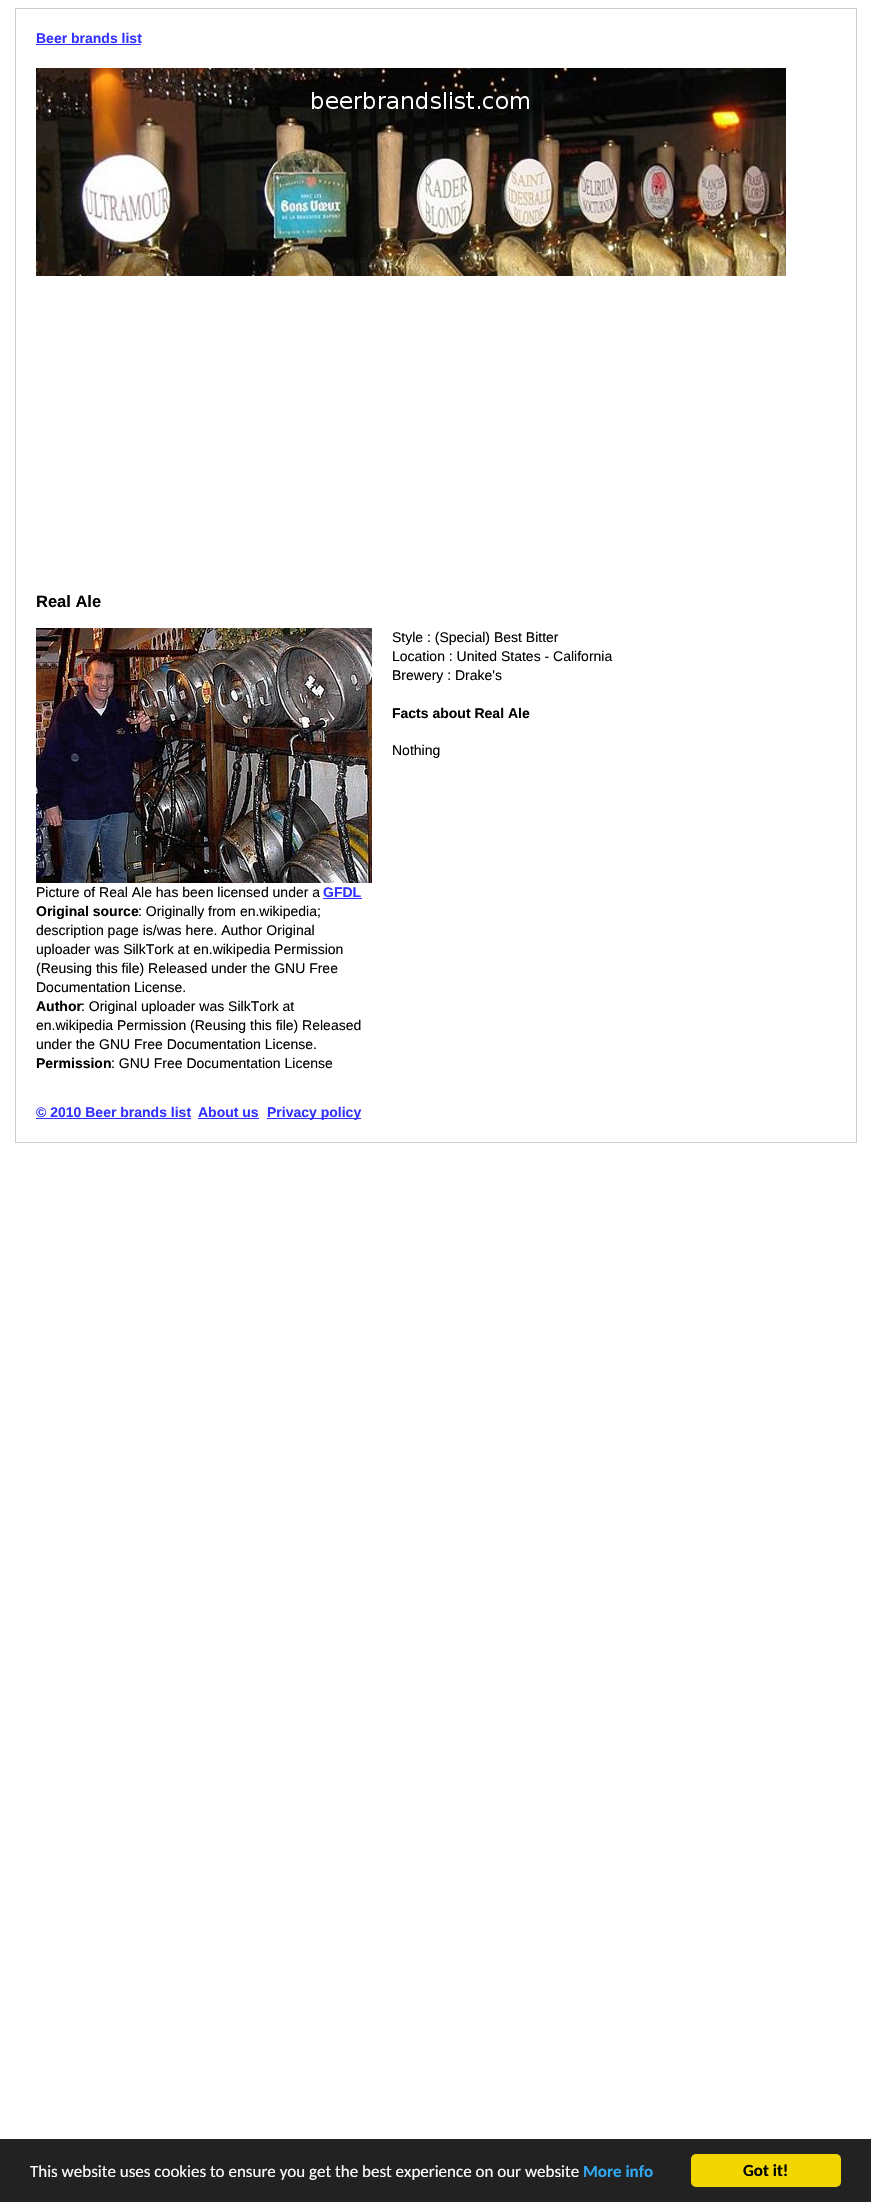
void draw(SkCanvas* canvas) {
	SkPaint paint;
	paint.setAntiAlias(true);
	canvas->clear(0xffffffff);
	paint.setStroke(true);
	paint.setStrokeWidth(1);
	paint.setColor(0xffcccccc);
	canvas->drawRect(SkRect::MakeXYWH(15.5, 8.5, 841, 1134), paint);
	SkFont f1(fontMgr->matchFamilyStyle("Liberation Sans", SkFontStyle::Bold()), 14);
	f1.setSubpixel(true);
	paint.setStroke(false);
	paint.setColor(0xff3333ff);
	canvas->drawString("Beer brands list", 36, 43, f1, paint);
	canvas->drawRect(SkRect::MakeXYWH(36, 44, 105, 1), paint);
	canvas->drawImageRect(SkImages::DeferredFromEncodedData(SkData::MakeFromFileName("img1.png")), SkRect::MakeXYWH(36, 68, 750, 208), SkSamplingOptions());
	SkFont f2(fontMgr->matchFamilyStyle("Liberation Sans", SkFontStyle::Bold()), 16.5);
	f2.setSubpixel(true);
	paint.setColor(0xff000000);
	canvas->drawString("Real Ale", 36, 607, f2, paint);
	SkFont f3(fontMgr->matchFamilyStyle("Liberation Sans", SkFontStyle::Normal()), 14);
	f3.setSubpixel(true);
	canvas->drawString("Style : (Special) Best Bitter", 392, 642, f3, paint);
	canvas->drawString("Location : United States - California", 392, 661, f3, paint);
	canvas->drawString("Brewery : Drake's", 392, 680, f3, paint);
	canvas->drawString("Facts about Real Ale", 392, 718, f1, paint);
	canvas->drawString("Nothing", 392, 755, f3, paint);
	canvas->drawImageRect(SkImages::DeferredFromEncodedData(SkData::MakeFromFileName("img2.png")), SkRect::MakeXYWH(36, 628, 336, 255), SkSamplingOptions());
	canvas->drawString("Picture of Real Ale has been licensed under a", 36, 897, f3, paint);
	paint.setColor(0xff3333ff);
	canvas->drawString("GFDL", 323, 897, f1, paint);
	canvas->drawRect(SkRect::MakeXYWH(323, 898, 39, 1), paint);
	paint.setColor(0xff000000);
	canvas->drawString("Original source", 36, 916, f1, paint);
	canvas->drawString(": Originally from en.wikipedia;", 138, 916, f3, paint);
	canvas->drawString("description page is/was here. Author Original", 36, 935, f3, paint);
	canvas->drawString("uploader was SilkTork at en.wikipedia Permission", 36, 954, f3, paint);
	canvas->drawString("(Reusing this file) Released under the GNU Free", 36, 973, f3, paint);
	canvas->drawString("Documentation License.", 36, 992, f3, paint);
	canvas->drawString("Author", 36, 1011, f1, paint);
	canvas->drawString(": Original uploader was SilkTork at", 81, 1011, f3, paint);
	canvas->drawString("en.wikipedia Permission (Reusing this file) Released", 36, 1030, f3, paint);
	canvas->drawString("under the GNU Free Documentation License.", 36, 1049, f3, paint);
	canvas->drawString("Permission", 36, 1068, f1, paint);
	canvas->drawString(": GNU Free Documentation License", 111, 1068, f3, paint);
	paint.setColor(0xff3333ff);
	canvas->drawString("© 2010 Beer brands list", 36, 1117, f1, paint);
	canvas->drawRect(SkRect::MakeXYWH(36, 1118, 155, 1), paint);
	canvas->drawString("About us", 198, 1117, f1, paint);
	canvas->drawRect(SkRect::MakeXYWH(198, 1118, 61, 1), paint);
	canvas->drawRect(SkRect::MakeXYWH(267, 1118, 94, 1), paint);
	canvas->drawString("Privacy policy", 267, 1117, f1, paint);
	paint.setColor(0xff222222);
	canvas->drawRect(SkRect::MakeXYWH(0, 2139, 871, 63), paint);
	SkFont f4(fontMgr->matchFamilyStyle("Carlito", SkFontStyle::Normal()), 17);
	f4.setSubpixel(true);
	paint.setColor(0xffffffff);
	canvas->drawString("This website uses cookies to ensure you get the best experience on our website", 30, 2177, f4, paint);
	SkFont f5(fontMgr->matchFamilyStyle("Carlito", SkFontStyle::Bold()), 17);
	f5.setSubpixel(true);
	paint.setColor(0xff31a8f0);
	canvas->drawString("More info", 583, 2177, f5, paint);
	paint.setColor(0xfff1d600);
	canvas->drawRoundRect(SkRect::MakeXYWH(691, 2154, 150, 33), 5, 5, paint);
	paint.setColor(0xff000000);
	canvas->drawString("Got it!", 743, 2176, f5, paint);
}
